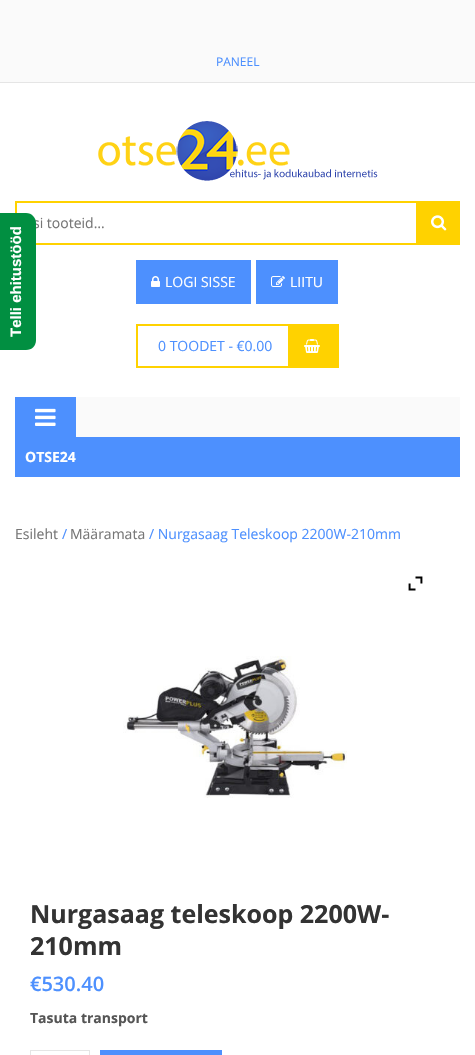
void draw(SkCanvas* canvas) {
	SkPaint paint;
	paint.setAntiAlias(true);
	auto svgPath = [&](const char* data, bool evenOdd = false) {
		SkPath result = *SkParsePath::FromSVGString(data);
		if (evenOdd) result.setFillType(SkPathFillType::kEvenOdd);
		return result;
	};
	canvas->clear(0xffffffff);
	paint.setColor(0xfffafafa);
	canvas->drawRect(SkRect::MakeXYWH(0, 0, 475, 82), paint);
	paint.setColor(0xffe5e5e5);
	canvas->drawRect(SkRect::MakeXYWH(0, 82, 475, 1), paint);
	SkFont f1(fontMgr->matchFamilyStyle("Open Sans", SkFontStyle::Normal()), 12);
	f1.setSubpixel(true);
	paint.setColor(0xff4d90fe);
	canvas->drawString("PANEEL", 216, 66, f1, paint);
	canvas->drawImageRect(SkImages::DeferredFromEncodedData(SkData::MakeFromFileName("img1.png")), SkRect::MakeXYWH(98, 121, 280, 60), SkSamplingOptions());
	paint.setStroke(true);
	paint.setStrokeWidth(2);
	paint.setColor(0xffffd200);
	canvas->drawRect(SkRect::MakeXYWH(16, 202, 443, 42), paint);
	SkFont f2(fontMgr->matchFamilyStyle("Open Sans", SkFontStyle::Normal()), 14);
	f2.setSubpixel(true);
	paint.setStroke(false);
	paint.setColor(0xff767676);
	canvas->drawString("si tooteid…", 33, 228, f2, paint);
	paint.setColor(0xffffd200);
	canvas->drawRect(SkRect::MakeXYWH(416, 203, 42, 40), paint);
	canvas->drawImageRect(SkImages::DeferredFromEncodedData(SkData::MakeFromFileName("img2.png")), SkRect::MakeXYWH(431, 215, 16, 16), SkSamplingOptions());
	paint.setColor(0xff4d90fe);
	canvas->drawRect(SkRect::MakeXYWH(136, 260, 115, 44), paint);
	canvas->drawImageRect(SkImages::DeferredFromEncodedData(SkData::MakeFromFileName("img3.png")), SkRect::MakeXYWH(151, 276, 9, 11), SkSamplingOptions());
	paint.setColor(0xffffffff);
	canvas->drawString("LOGI SISSE", 165, 287, f2, paint);
	paint.setColor(0xff4d90fe);
	canvas->drawRect(SkRect::MakeXYWH(256, 260, 82, 44), paint);
	canvas->drawImageRect(SkImages::DeferredFromEncodedData(SkData::MakeFromFileName("img4.png")), SkRect::MakeXYWH(271, 276, 14, 11), SkSamplingOptions());
	paint.setColor(0xffffffff);
	canvas->drawString("LIITU", 290, 287, f2, paint);
	paint.setStroke(true);
	paint.setColor(0xffffd200);
	canvas->drawRect(SkRect::MakeXYWH(137, 325, 201, 42), paint);
	paint.setStroke(false);
	paint.setColor(0xff4d90fe);
	canvas->drawString("0 TOODET - €0.00", 158, 351, f2, paint);
	paint.setColor(0xffffd200);
	canvas->drawRect(SkRect::MakeXYWH(288, 326, 49, 40), paint);
	canvas->drawImageRect(SkImages::DeferredFromEncodedData(SkData::MakeFromFileName("img5.png")), SkRect::MakeXYWH(304, 339, 16, 14), SkSamplingOptions());
	paint.setColor(0xfffafafa);
	canvas->drawRect(SkRect::MakeXYWH(76, 397, 384, 40), paint);
	paint.setColor(0xff4d90fe);
	canvas->drawRect(SkRect::MakeXYWH(15, 397, 61, 40), paint);
	canvas->drawImageRect(SkImages::DeferredFromEncodedData(SkData::MakeFromFileName("img6.png")), SkRect::MakeXYWH(35, 408, 21, 18), SkSamplingOptions());
	canvas->drawRect(SkRect::MakeXYWH(15, 437, 445, 40), paint);
	SkFont f3(fontMgr->matchFamilyStyle("Open Sans", SkFontStyle::Bold()), 14);
	f3.setSubpixel(true);
	paint.setColor(0xffffffff);
	canvas->drawString("OTSE24", 25, 462, f3, paint);
	paint.setColor(0xff767676);
	canvas->drawString("Esileht", 15, 539, f2, paint);
	paint.setColor(0xff4d90fe);
	canvas->drawString("/", 62, 539, f2, paint);
	paint.setColor(0xff767676);
	canvas->drawString("Määramata", 70, 539, f2, paint);
	paint.setColor(0xff4d90fe);
	canvas->drawString("/ Nurgasaag Teleskoop 2200W-210mm", 149, 539, f2, paint);
	canvas->drawImageRect(SkImages::DeferredFromEncodedData(SkData::MakeFromFileName("img7.png")), SkRect::MakeXYWH(408, 576, 15, 15), SkSamplingOptions());
	canvas->drawImageRect(SkImages::DeferredFromEncodedData(SkData::MakeFromFileName("img8.png")), SkRect::MakeXYWH(123, 656, 224, 142), SkSamplingOptions());
	SkFont f4(fontMgr->matchFamilyStyle("Open Sans", SkFontStyle::Bold()), 25);
	f4.setSubpixel(true);
	paint.setColor(0xff333333);
	canvas->drawString("Nurgasaag teleskoop 2200W-", 30, 923, f4, paint);
	canvas->drawString("210mm", 30, 955, f4, paint);
	SkFont f5(fontMgr->matchFamilyStyle("Open Sans", SkFontStyle(600, SkFontStyle::kNormal_Width, SkFontStyle::kUpright_Slant)), 20);
	f5.setSubpixel(true);
	paint.setColor(0xff4d90fe);
	canvas->drawString("€530.40", 30, 991, f5, paint);
	paint.setColor(0xff555555);
	canvas->drawString("Tasuta transport", 30, 1023, f3, paint);
	paint.setStroke(true);
	paint.setStrokeWidth(1);
	paint.setColor(0xffe5e5e5);
	canvas->drawRect(SkRect::MakeXYWH(30.5, 1050.5, 59, 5), paint);
	paint.setStroke(false);
	paint.setColor(0xff4d90fe);
	canvas->drawRect(SkRect::MakeXYWH(100, 1050, 122, 5), paint);
	paint.setColor(0xff018f41);
	canvas->drawPath(svgPath("M-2 350V213H26C32 213 36 218 36 223V340C36 346 32 350 26 350Z"), paint);
	SkFont f6(fontMgr->matchFamilyStyle("Liberation Sans", SkFontStyle::Bold()), 15);
	f6.setSubpixel(true);
	paint.setColor(0xffffffff);
	canvas->save();
	canvas->rotate(-90, 21, 337);
	canvas->drawString("Telli ehitustööd", 21, 337, f6, paint);
	canvas->restore();
}
